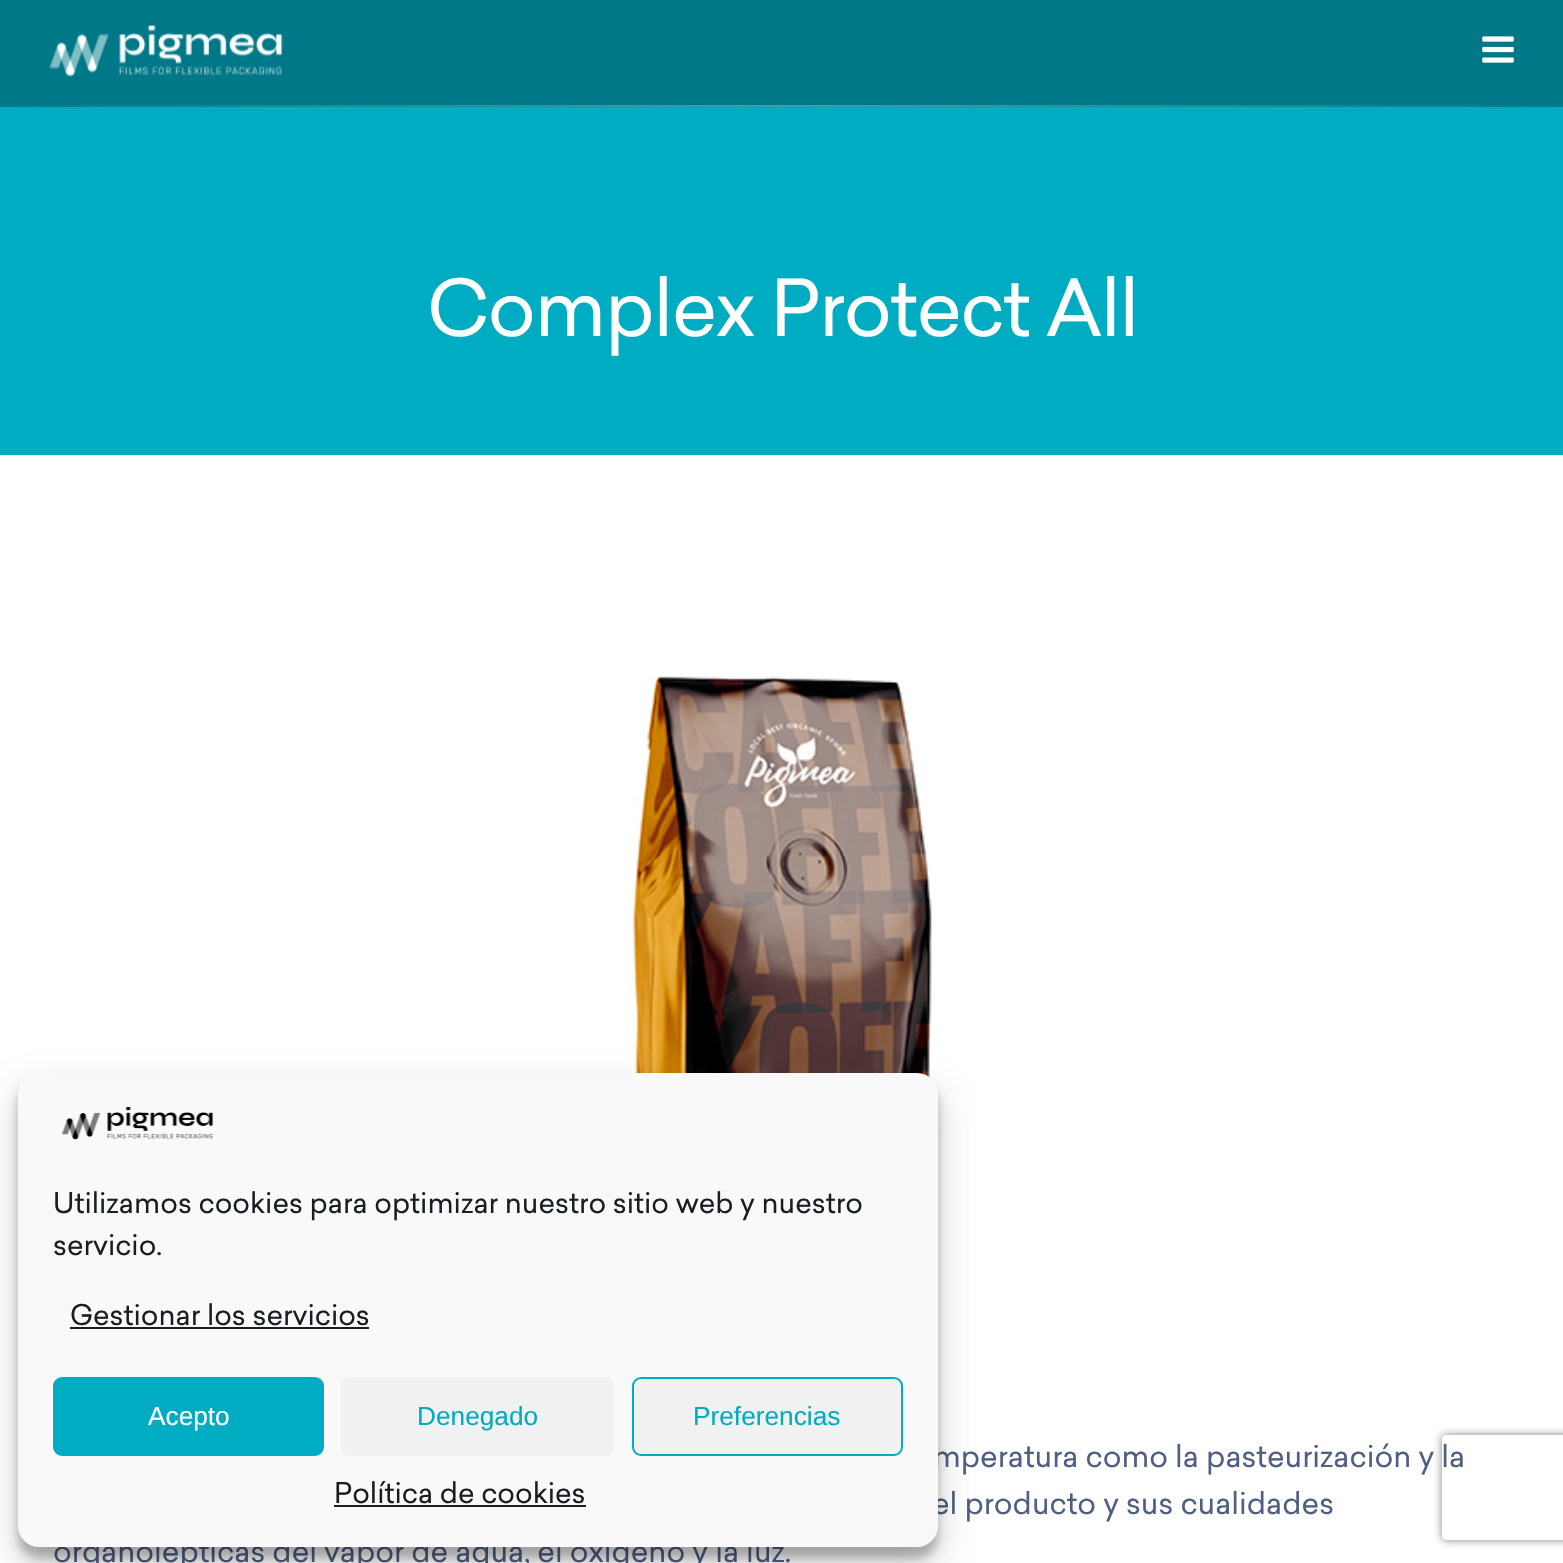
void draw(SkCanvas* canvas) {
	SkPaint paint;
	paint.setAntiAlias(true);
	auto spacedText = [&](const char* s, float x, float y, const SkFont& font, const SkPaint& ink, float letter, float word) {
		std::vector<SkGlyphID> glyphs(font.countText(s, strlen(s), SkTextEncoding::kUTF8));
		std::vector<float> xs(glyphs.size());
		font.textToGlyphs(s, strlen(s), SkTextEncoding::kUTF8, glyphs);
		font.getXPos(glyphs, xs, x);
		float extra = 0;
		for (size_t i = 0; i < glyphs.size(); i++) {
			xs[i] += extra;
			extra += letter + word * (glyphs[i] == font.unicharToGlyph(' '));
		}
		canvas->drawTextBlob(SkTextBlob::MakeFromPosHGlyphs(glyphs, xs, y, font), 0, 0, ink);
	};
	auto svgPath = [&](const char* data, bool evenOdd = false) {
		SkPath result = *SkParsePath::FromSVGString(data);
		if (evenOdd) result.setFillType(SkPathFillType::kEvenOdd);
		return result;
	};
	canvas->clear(0xffffffff);
	paint.setColor(0xff007887);
	canvas->drawRect(SkRect::MakeXYWH(0, 0, 1563, 107), paint);
	canvas->drawImageRect(SkImages::DeferredFromEncodedData(SkData::MakeFromFileName("img1.png")), SkRect::MakeXYWH(0, 105, 1563, 2), SkSamplingOptions());
	canvas->drawImageRect(SkImages::DeferredFromEncodedData(SkData::MakeFromFileName("img2.png")), SkRect::MakeXYWH(49, 25, 234, 52), SkSamplingOptions());
	canvas->drawImageRect(SkImages::DeferredFromEncodedData(SkData::MakeFromFileName("img3.png")), SkRect::MakeXYWH(1482, 36, 32, 27), SkSamplingOptions());
	paint.setColor(0xff00acc1);
	canvas->drawRect(SkRect::MakeXYWH(0, 107, 1563, 348), paint);
	SkFont f1(fontMgr->matchFamilyStyle("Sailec", SkFontStyle::Normal()), 77);
	f1.setSubpixel(true);
	paint.setColor(0xffffffff);
	spacedText("Complex Protect All", 427, 336, f1, paint, -1.6, 0);
	canvas->drawImageRect(SkImages::DeferredFromEncodedData(SkData::MakeFromFileName("img4.png")), SkRect::MakeXYWH(584, 676, 348, 404), SkSamplingOptions());
	SkFont f2(fontMgr->matchFamilyStyle("Sailec", SkFontStyle::Normal()), 29.75);
	f2.setSubpixel(true);
	paint.setColor(0xff4f5f83);
	canvas->drawString("mperatura como la pasteurización y la", 933, 1467, f2, paint);
	canvas->drawString("el producto y sus cualidades", 932, 1514, f2, paint);
	canvas->drawString("organolépticas del vapor de agua, el oxígeno y la luz.", 53, 1562, f2, paint);
	paint.setColor(0x3b000000);
	paint.setMaskFilter(SkMaskFilter::MakeBlur(kNormal_SkBlurStyle, 5));
	canvas->drawRoundRect(SkRect::MakeXYWH(18, 1083, 920, 475), 21, 21, paint);
	paint.setMaskFilter(nullptr);
	paint.setColor(0x30000000);
	paint.setMaskFilter(SkMaskFilter::MakeBlur(kNormal_SkBlurStyle, 17.5));
	canvas->drawRoundRect(SkRect::MakeXYWH(18, 1090, 920, 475), 21, 21, paint);
	paint.setMaskFilter(nullptr);
	paint.setColor(0xfff9f9f9);
	canvas->drawRoundRect(SkRect::MakeXYWH(18, 1073, 920, 474), 21, 21, paint);
	canvas->drawImageRect(SkImages::DeferredFromEncodedData(SkData::MakeFromFileName("img5.png")), SkRect::MakeXYWH(61, 1106, 153, 34), SkSamplingOptions());
	SkFont f3(fontMgr->matchFamilyStyle("Sailec", SkFontStyle::Normal()), 28);
	f3.setSubpixel(true);
	paint.setColor(0xff191e23);
	canvas->drawString("Utilizamos cookies para optimizar nuestro sitio web y nuestro", 53, 1213, f3, paint);
	canvas->drawString("servicio.", 53, 1255, f3, paint);
	canvas->drawString("Gestionar los servicios", 70, 1325, f3, paint);
	canvas->drawRect(SkRect::MakeXYWH(70, 1327, 299, 2), paint);
	paint.setColor(0xff00acc1);
	canvas->drawRoundRect(SkRect::MakeXYWH(54, 1378, 269, 77), 8, 8, paint);
	paint.setStroke(true);
	paint.setStrokeWidth(2);
	canvas->drawRoundRect(SkRect::MakeXYWH(54, 1378, 269, 77), 8, 8, paint);
	SkFont f4(fontMgr->matchFamilyStyle("Liberation Sans", SkFontStyle::Normal()), 26.25);
	f4.setSubpixel(true);
	paint.setStroke(false);
	paint.setColor(0xffffffff);
	canvas->drawString("Acepto", 148, 1425, f4, paint);
	paint.setColor(0xfff1f1f1);
	canvas->drawRoundRect(SkRect::MakeXYWH(341, 1377, 273, 79), 9, 9, paint);
	paint.setColor(0xff00acc1);
	canvas->drawString("Denegado", 417, 1425, f4, paint);
	paint.setColor(0xfff1f1f1);
	canvas->drawRoundRect(SkRect::MakeXYWH(633, 1378, 269, 77), 8, 8, paint);
	paint.setStroke(true);
	paint.setColor(0xff00acc1);
	canvas->drawRoundRect(SkRect::MakeXYWH(633, 1378, 269, 77), 8, 8, paint);
	paint.setStroke(false);
	canvas->drawString("Preferencias", 693, 1425, f4, paint);
	paint.setColor(0xff191e23);
	canvas->drawString("Política de cookies", 334, 1503, f3, paint);
	canvas->drawRect(SkRect::MakeXYWH(334, 1505, 252, 2), paint);
	canvas->save();
	canvas->clipPath(svgPath("M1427 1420H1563V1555H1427ZM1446 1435H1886C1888 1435 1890 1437 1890 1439V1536C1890 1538 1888 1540 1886 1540H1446C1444 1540 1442 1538 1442 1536V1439C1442 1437 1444 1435 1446 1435Z", true), true);
	paint.setColor(0xff808080);
	paint.setMaskFilter(SkMaskFilter::MakeBlur(kNormal_SkBlurStyle, 4.5));
	canvas->drawRoundRect(SkRect::MakeXYWH(1442, 1435, 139, 105), 4, 4, paint);
	paint.setMaskFilter(nullptr);
	canvas->restore();
}
